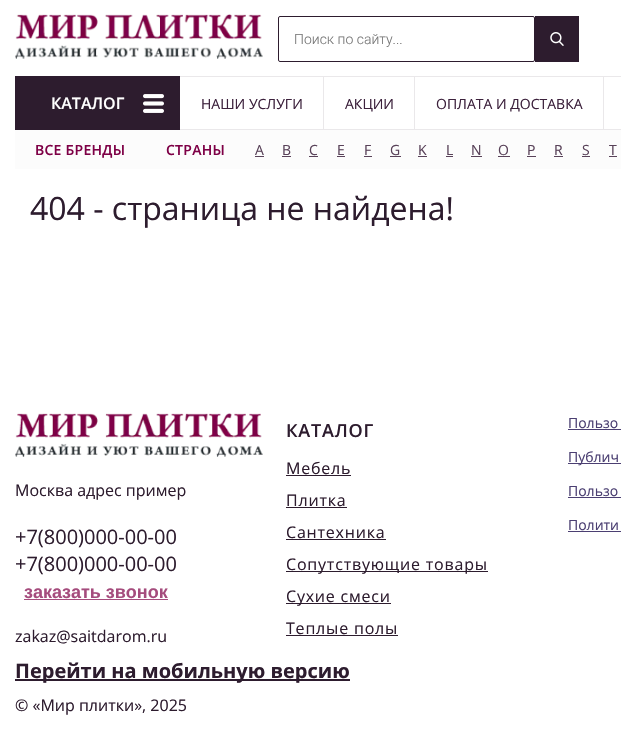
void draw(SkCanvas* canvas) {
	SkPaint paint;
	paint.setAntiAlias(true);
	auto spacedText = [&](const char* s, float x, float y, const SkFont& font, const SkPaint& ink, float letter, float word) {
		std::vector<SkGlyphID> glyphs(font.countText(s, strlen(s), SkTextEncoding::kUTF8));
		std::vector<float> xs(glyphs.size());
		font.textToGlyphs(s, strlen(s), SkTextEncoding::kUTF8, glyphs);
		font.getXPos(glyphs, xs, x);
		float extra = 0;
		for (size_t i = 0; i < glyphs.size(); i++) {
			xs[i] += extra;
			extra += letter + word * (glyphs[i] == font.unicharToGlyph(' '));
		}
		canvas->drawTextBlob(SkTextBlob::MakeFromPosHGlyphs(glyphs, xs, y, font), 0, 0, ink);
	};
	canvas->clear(0xffffffff);
	canvas->drawImageRect(SkImages::DeferredFromEncodedData(SkData::MakeFromFileName("img1.png")), SkRect::MakeXYWH(15, 14, 248, 45), SkSamplingOptions());
	paint.setStroke(true);
	paint.setStrokeWidth(1);
	paint.setColor(0xff2d1c2e);
	canvas->drawRoundRect(SkRect::MakeXYWH(278.5, 16.5, 256, 45), 1.5, 1.5, paint);
	SkFont f1(fontMgr->matchFamilyStyle("Roboto", SkFontStyle(300, SkFontStyle::kNormal_Width, SkFontStyle::kUpright_Slant)), 14);
	f1.setSubpixel(true);
	paint.setStroke(false);
	paint.setColor(0xff757575);
	canvas->drawString("Поиск по сайту...", 294, 44, f1, paint);
	paint.setColor(0xff2d1c2e);
	canvas->drawRect(SkRect::MakeXYWH(535, 16, 44, 46), paint);
	canvas->drawImageRect(SkImages::DeferredFromEncodedData(SkData::MakeFromFileName("img2.png")), SkRect::MakeXYWH(550, 32, 14, 14), SkSamplingOptions());
	canvas->drawRect(SkRect::MakeXYWH(15, 76, 165, 54), paint);
	SkFont f2(fontMgr->matchFamilyStyle("Open Sans", SkFontStyle(600, SkFontStyle::kNormal_Width, SkFontStyle::kUpright_Slant)), 16);
	f2.setSubpixel(true);
	paint.setColor(0xffffffff);
	canvas->drawString("КАТАЛОГ", 51, 109, f2, paint);
	canvas->drawImageRect(SkImages::DeferredFromEncodedData(SkData::MakeFromFileName("img3.png")), SkRect::MakeXYWH(143, 94, 21, 19), SkSamplingOptions());
	paint.setColor(0xffeae8ea);
	canvas->drawRect(SkRect::MakeXYWH(180, 76, 441, 1), paint);
	canvas->drawRect(SkRect::MakeXYWH(180, 129, 441, 1), paint);
	SkFont f3(fontMgr->matchFamilyStyle("Open Sans", SkFontStyle::Normal()), 14);
	f3.setSubpixel(true);
	paint.setColor(0xff3c213c);
	canvas->drawString("НАШИ УСЛУГИ", 201, 109, f3, paint);
	paint.setColor(0xffeae8ea);
	canvas->drawRect(SkRect::MakeXYWH(323, 76, 1, 54), paint);
	paint.setColor(0xff3c213c);
	canvas->drawString("АКЦИИ", 345, 109, f3, paint);
	paint.setColor(0xffeae8ea);
	canvas->drawRect(SkRect::MakeXYWH(414, 76, 1, 54), paint);
	paint.setColor(0xff3c213c);
	canvas->drawString("ОПЛАТА И ДОСТАВКА", 436, 109, f3, paint);
	paint.setColor(0xffeae8ea);
	canvas->drawRect(SkRect::MakeXYWH(603, 76, 1, 54), paint);
	paint.setColor(0xfffcfcfc);
	canvas->drawRect(SkRect::MakeXYWH(15, 130, 606, 39), paint);
	SkFont f4(fontMgr->matchFamilyStyle("Open Sans", SkFontStyle(600, SkFontStyle::kNormal_Width, SkFontStyle::kUpright_Slant)), 14);
	f4.setSubpixel(true);
	paint.setColor(0xff7e0046);
	spacedText("ВСЕ БРЕНДЫ", 35, 155, f4, paint, 0.25, 0);
	spacedText("СТРАНЫ", 166, 155, f4, paint, 0.25, 0);
	paint.setColor(0xff594259);
	spacedText("A", 255, 155, f3, paint, 0.25, 0);
	canvas->drawRect(SkRect::MakeXYWH(255, 156, 9, 1), paint);
	spacedText("B", 282, 155, f3, paint, 0.25, 0);
	canvas->drawRect(SkRect::MakeXYWH(282, 156, 9, 1), paint);
	spacedText("C", 309, 155, f3, paint, 0.25, 0);
	canvas->drawRect(SkRect::MakeXYWH(309, 156, 9, 1), paint);
	spacedText("E", 337, 155, f3, paint, 0.25, 0);
	canvas->drawRect(SkRect::MakeXYWH(337, 156, 8, 1), paint);
	spacedText("F", 364, 155, f3, paint, 0.25, 0);
	canvas->drawRect(SkRect::MakeXYWH(364, 156, 8, 1), paint);
	spacedText("G", 390, 155, f3, paint, 0.25, 0);
	canvas->drawRect(SkRect::MakeXYWH(390, 156, 11, 1), paint);
	spacedText("K", 418, 155, f3, paint, 0.25, 0);
	canvas->drawRect(SkRect::MakeXYWH(418, 156, 9, 1), paint);
	spacedText("L", 446, 155, f3, paint, 0.25, 0);
	canvas->drawRect(SkRect::MakeXYWH(446, 156, 7, 1), paint);
	spacedText("N", 471, 155, f3, paint, 0.25, 0);
	canvas->drawRect(SkRect::MakeXYWH(471, 156, 11, 1), paint);
	spacedText("O", 498, 155, f3, paint, 0.25, 0);
	canvas->drawRect(SkRect::MakeXYWH(498, 156, 12, 1), paint);
	spacedText("P", 527, 155, f3, paint, 0.25, 0);
	canvas->drawRect(SkRect::MakeXYWH(527, 156, 9, 1), paint);
	spacedText("R", 554, 155, f3, paint, 0.25, 0);
	canvas->drawRect(SkRect::MakeXYWH(554, 156, 9, 1), paint);
	spacedText("S", 582, 155, f3, paint, 0.25, 0);
	canvas->drawRect(SkRect::MakeXYWH(582, 156, 8, 1), paint);
	spacedText("T", 609, 155, f3, paint, 0.25, 0);
	canvas->drawRect(SkRect::MakeXYWH(609, 156, 8, 1), paint);
	SkFont f5(fontMgr->matchFamilyStyle("Open Sans", SkFontStyle::Normal()), 32);
	f5.setSubpixel(true);
	paint.setColor(0xff2d1c2e);
	canvas->drawString("404 - страница не найдена!", 30, 220, f5, paint);
	canvas->drawImageRect(SkImages::DeferredFromEncodedData(SkData::MakeFromFileName("img4.png")), SkRect::MakeXYWH(15, 413, 248, 44), SkSamplingOptions());
	SkFont f6(fontMgr->matchFamilyStyle("Open Sans", SkFontStyle::Normal()), 16);
	f6.setSubpixel(true);
	canvas->drawString("Москва адрес пример", 15, 496, f6, paint);
	SkFont f7(fontMgr->matchFamilyStyle("Open Sans", SkFontStyle::Normal()), 20);
	f7.setSubpixel(true);
	canvas->drawString("+7(800)000-00-00", 15, 544, f7, paint);
	canvas->drawString("+7(800)000-00-00", 15, 571, f7, paint);
	SkFont f8(fontMgr->matchFamilyStyle("Liberation Sans", SkFontStyle::Bold()), 18);
	f8.setSubpixel(true);
	paint.setColor(0xffa54c7d);
	canvas->drawString("заказать звонок", 24, 598, f8, paint);
	canvas->drawRect(SkRect::MakeXYWH(24, 599, 144, 1), paint);
	paint.setColor(0xff2d1c2e);
	canvas->drawString("zakaz@saitdarom.ru", 15, 642, f6, paint);
	SkFont f9(fontMgr->matchFamilyStyle("Open Sans", SkFontStyle(600, SkFontStyle::kNormal_Width, SkFontStyle::kUpright_Slant)), 18);
	f9.setSubpixel(true);
	spacedText("КАТАЛОГ", 286, 437, f9, paint, 0.8, 0);
	spacedText("Мебель", 286, 474, f6, paint, 0.8, 0);
	canvas->drawRect(SkRect::MakeXYWH(286, 475, 65, 1), paint);
	spacedText("Плитка", 286, 506, f6, paint, 0.8, 0);
	canvas->drawRect(SkRect::MakeXYWH(286, 507, 61, 1), paint);
	spacedText("Сантехника", 286, 538, f6, paint, 0.8, 0);
	canvas->drawRect(SkRect::MakeXYWH(286, 539, 100, 1), paint);
	canvas->drawRect(SkRect::MakeXYWH(286, 571, 202, 1), paint);
	spacedText("Сопутствующие товары", 286, 570, f6, paint, 0.8, 0);
	canvas->drawRect(SkRect::MakeXYWH(286, 603, 105, 1), paint);
	spacedText("Сухие смеси", 286, 602, f6, paint, 0.8, 0);
	spacedText("Теплые полы", 286, 634, f6, paint, 0.8, 0);
	canvas->drawRect(SkRect::MakeXYWH(286, 635, 112, 1), paint);
	paint.setColor(0xff4b3f72);
	canvas->drawString("Пользо", 568, 428, f3, paint);
	canvas->drawRect(SkRect::MakeXYWH(568, 429, 53, 1), paint);
	canvas->drawRect(SkRect::MakeXYWH(568, 463, 53, 1), paint);
	canvas->drawString("Публич", 568, 462, f3, paint);
	canvas->drawString("Пользо", 568, 496, f3, paint);
	canvas->drawRect(SkRect::MakeXYWH(568, 497, 53, 1), paint);
	canvas->drawString("Полити", 568, 530, f3, paint);
	canvas->drawRect(SkRect::MakeXYWH(568, 531, 53, 1), paint);
	paint.setColor(0xff2d1c2e);
	canvas->drawRect(SkRect::MakeXYWH(15, 679, 335, 2), paint);
	SkFont f10(fontMgr->matchFamilyStyle("Open Sans", SkFontStyle::Bold()), 20);
	f10.setSubpixel(true);
	canvas->drawString("Перейти на мобильную версию", 15, 678, f10, paint);
	canvas->drawString("© «Мир плитки», 2025", 15, 711, f6, paint);
}
